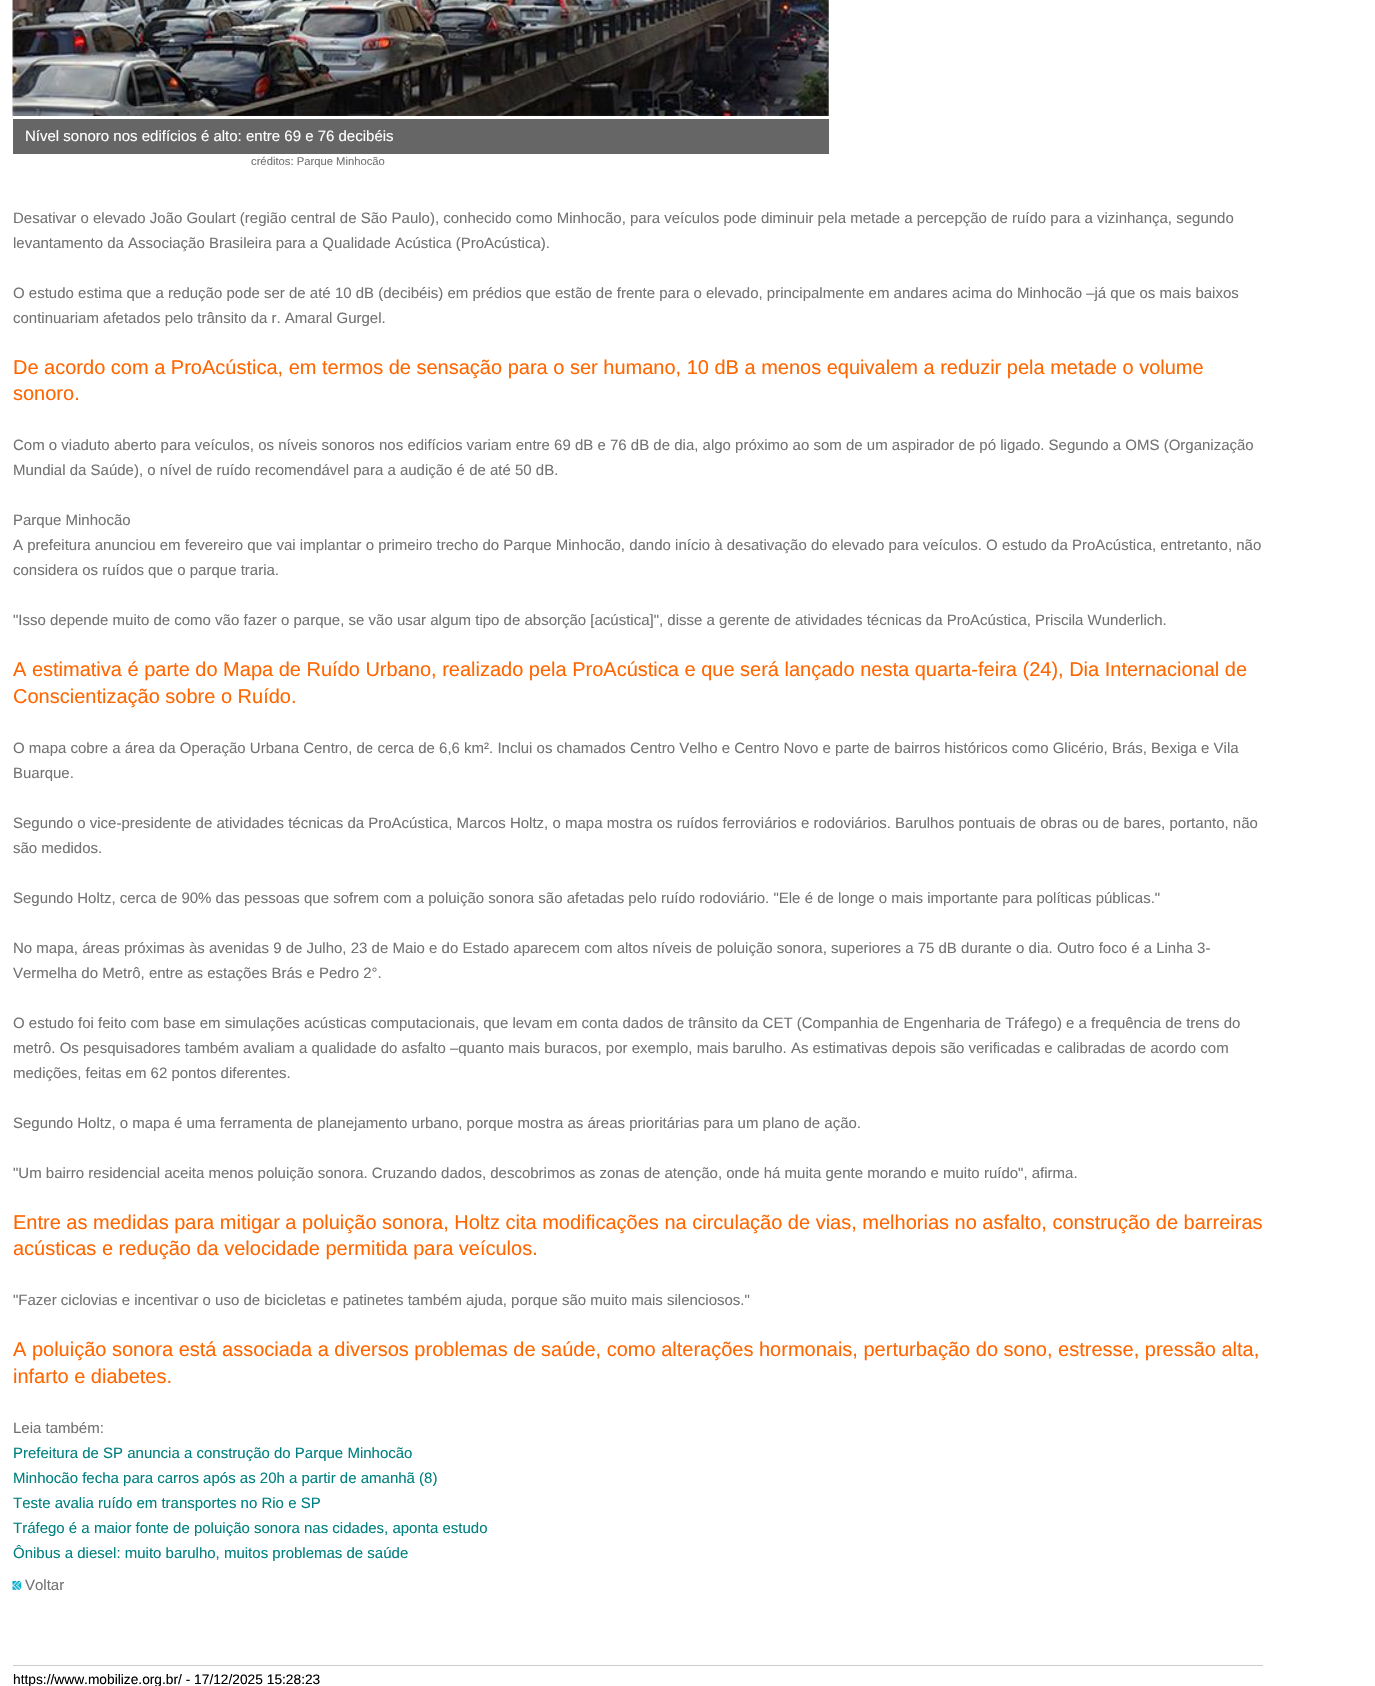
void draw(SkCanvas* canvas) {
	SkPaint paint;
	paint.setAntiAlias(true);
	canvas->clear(0xffffffff);
	canvas->drawImageRect(SkImages::DeferredFromEncodedData(SkData::MakeFromFileName("img1.png")), SkRect::MakeXYWH(12, 0, 817, 116), SkSamplingOptions());
	paint.setColor(0xff666666);
	canvas->drawRect(SkRect::MakeXYWH(13, 119, 816, 35), paint);
	SkFont f1(fontMgr->matchFamilyStyle("Liberation Sans", SkFontStyle::Normal()), 15);
	f1.setSubpixel(true);
	paint.setColor(0xffffffff);
	canvas->drawString("Nível sonoro nos edifícios é alto: entre 69 e 76 decibéis", 25, 141, f1, paint);
	SkFont f2(fontMgr->matchFamilyStyle("Liberation Sans", SkFontStyle::Normal()), 11.25);
	f2.setSubpixel(true);
	paint.setColor(0xff737373);
	canvas->drawString("créditos: Parque Minhocão", 251, 165, f2, paint);
	canvas->drawString("Desativar o elevado João Goulart (região central de São Paulo), conhecido como Minhocão, para veículos pode diminuir pela metade a percepção de ruído para a vizinhança, segundo", 13, 223, f1, paint);
	canvas->drawString("levantamento da Associação Brasileira para a Qualidade Acústica (ProAcústica).", 13, 248, f1, paint);
	canvas->drawString("O estudo estima que a redução pode ser de até 10 dB (decibéis) em prédios que estão de frente para o elevado, principalmente em andares acima do Minhocão –já que os mais baixos", 13, 298, f1, paint);
	canvas->drawString("continuariam afetados pelo trânsito da r. Amaral Gurgel.", 13, 323, f1, paint);
	SkFont f3(fontMgr->matchFamilyStyle("Liberation Sans", SkFontStyle::Normal()), 20);
	f3.setSubpixel(true);
	paint.setColor(0xffff6600);
	canvas->drawString("De acordo com a ProAcústica, em termos de sensação para o ser humano, 10 dB a menos equivalem a reduzir pela metade o volume", 13, 374, f3, paint);
	canvas->drawString("sonoro.", 13, 400, f3, paint);
	paint.setColor(0xff737373);
	canvas->drawString("Com o viaduto aberto para veículos, os níveis sonoros nos edifícios variam entre 69 dB e 76 dB de dia, algo próximo ao som de um aspirador de pó ligado. Segundo a OMS (Organização", 13, 450, f1, paint);
	canvas->drawString("Mundial da Saúde), o nível de ruído recomendável para a audição é de até 50 dB.", 13, 475, f1, paint);
	canvas->drawString("Parque Minhocão", 13, 525, f1, paint);
	canvas->drawString("A prefeitura anunciou em fevereiro que vai implantar o primeiro trecho do Parque Minhocão, dando início à desativação do elevado para veículos. O estudo da ProAcústica, entretanto, não", 13, 550, f1, paint);
	canvas->drawString("considera os ruídos que o parque traria.", 13, 575, f1, paint);
	canvas->drawString("\"Isso depende muito de como vão fazer o parque, se vão usar algum tipo de absorção [acústica]\", disse a gerente de atividades técnicas da ProAcústica, Priscila Wunderlich.", 13, 625, f1, paint);
	paint.setColor(0xffff6600);
	canvas->drawString("A estimativa é parte do Mapa de Ruído Urbano, realizado pela ProAcústica e que será lançado nesta quarta-feira (24), Dia Internacional de", 13, 676, f3, paint);
	canvas->drawString("Conscientização sobre o Ruído.", 13, 703, f3, paint);
	paint.setColor(0xff737373);
	canvas->drawString("O mapa cobre a área da Operação Urbana Centro, de cerca de 6,6 km². Inclui os chamados Centro Velho e Centro Novo e parte de bairros históricos como Glicério, Brás, Bexiga e Vila", 13, 753, f1, paint);
	canvas->drawString("Buarque.", 13, 778, f1, paint);
	canvas->drawString("Segundo o vice-presidente de atividades técnicas da ProAcústica, Marcos Holtz, o mapa mostra os ruídos ferroviários e rodoviários. Barulhos pontuais de obras ou de bares, portanto, não", 13, 828, f1, paint);
	canvas->drawString("são medidos.", 13, 853, f1, paint);
	canvas->drawString("Segundo Holtz, cerca de 90% das pessoas que sofrem com a poluição sonora são afetadas pelo ruído rodoviário. \"Ele é de longe o mais importante para políticas públicas.\"", 13, 903, f1, paint);
	canvas->drawString("No mapa, áreas próximas às avenidas 9 de Julho, 23 de Maio e do Estado aparecem com altos níveis de poluição sonora, superiores a 75 dB durante o dia. Outro foco é a Linha 3-", 13, 953, f1, paint);
	canvas->drawString("Vermelha do Metrô, entre as estações Brás e Pedro 2°.", 13, 978, f1, paint);
	canvas->drawString("O estudo foi feito com base em simulações acústicas computacionais, que levam em conta dados de trânsito da CET (Companhia de Engenharia de Tráfego) e a frequência de trens do", 13, 1028, f1, paint);
	canvas->drawString("metrô. Os pesquisadores também avaliam a qualidade do asfalto –quanto mais buracos, por exemplo, mais barulho. As estimativas depois são verificadas e calibradas de acordo com", 13, 1053, f1, paint);
	canvas->drawString("medições, feitas em 62 pontos diferentes.", 13, 1078, f1, paint);
	canvas->drawString("Segundo Holtz, o mapa é uma ferramenta de planejamento urbano, porque mostra as áreas prioritárias para um plano de ação.", 13, 1128, f1, paint);
	canvas->drawString("\"Um bairro residencial aceita menos poluição sonora. Cruzando dados, descobrimos as zonas de atenção, onde há muita gente morando e muito ruído\", afirma.", 13, 1178, f1, paint);
	paint.setColor(0xffff6600);
	canvas->drawString("Entre as medidas para mitigar a poluição sonora, Holtz cita modificações na circulação de vias, melhorias no asfalto, construção de barreiras", 13, 1229, f3, paint);
	canvas->drawString("acústicas e redução da velocidade permitida para veículos.", 13, 1255, f3, paint);
	paint.setColor(0xff737373);
	canvas->drawString("\"Fazer ciclovias e incentivar o uso de bicicletas e patinetes também ajuda, porque são muito mais silenciosos.\"", 13, 1305, f1, paint);
	paint.setColor(0xffff6600);
	canvas->drawString("A poluição sonora está associada a diversos problemas de saúde, como alterações hormonais, perturbação do sono, estresse, pressão alta,", 13, 1356, f3, paint);
	canvas->drawString("infarto e diabetes.", 13, 1383, f3, paint);
	paint.setColor(0xff737373);
	canvas->drawString("Leia também:", 13, 1433, f1, paint);
	paint.setColor(0xff008080);
	canvas->drawString("Prefeitura de SP anuncia a construção do Parque Minhocão", 13, 1458, f1, paint);
	canvas->drawString("Minhocão fecha para carros após as 20h a partir de amanhã (8)", 13, 1483, f1, paint);
	canvas->drawString("Teste avalia ruído em transportes no Rio e SP", 13, 1508, f1, paint);
	canvas->drawString("Tráfego é a maior fonte de poluição sonora nas cidades, aponta estudo", 13, 1533, f1, paint);
	canvas->drawString("Ônibus a diesel: muito barulho, muitos problemas de saúde", 13, 1558, f1, paint);
	canvas->drawImageRect(SkImages::DeferredFromEncodedData(SkData::MakeFromFileName("img2.png")), SkRect::MakeXYWH(12, 1581, 10, 9), SkSamplingOptions());
	paint.setColor(0xff737373);
	canvas->drawString("Voltar", 25, 1590, f1, paint);
	paint.setColor(0xffcccccc);
	canvas->drawRect(SkRect::MakeXYWH(13, 1665, 1250, 1), paint);
	SkFont f4(fontMgr->matchFamilyStyle("Liberation Sans", SkFontStyle::Normal()), 13.75);
	f4.setSubpixel(true);
	paint.setColor(0xff000000);
	canvas->drawString("https://www.mobilize.org.br/ - 17/12/2025 15:28:23", 13, 1684, f4, paint);
}
